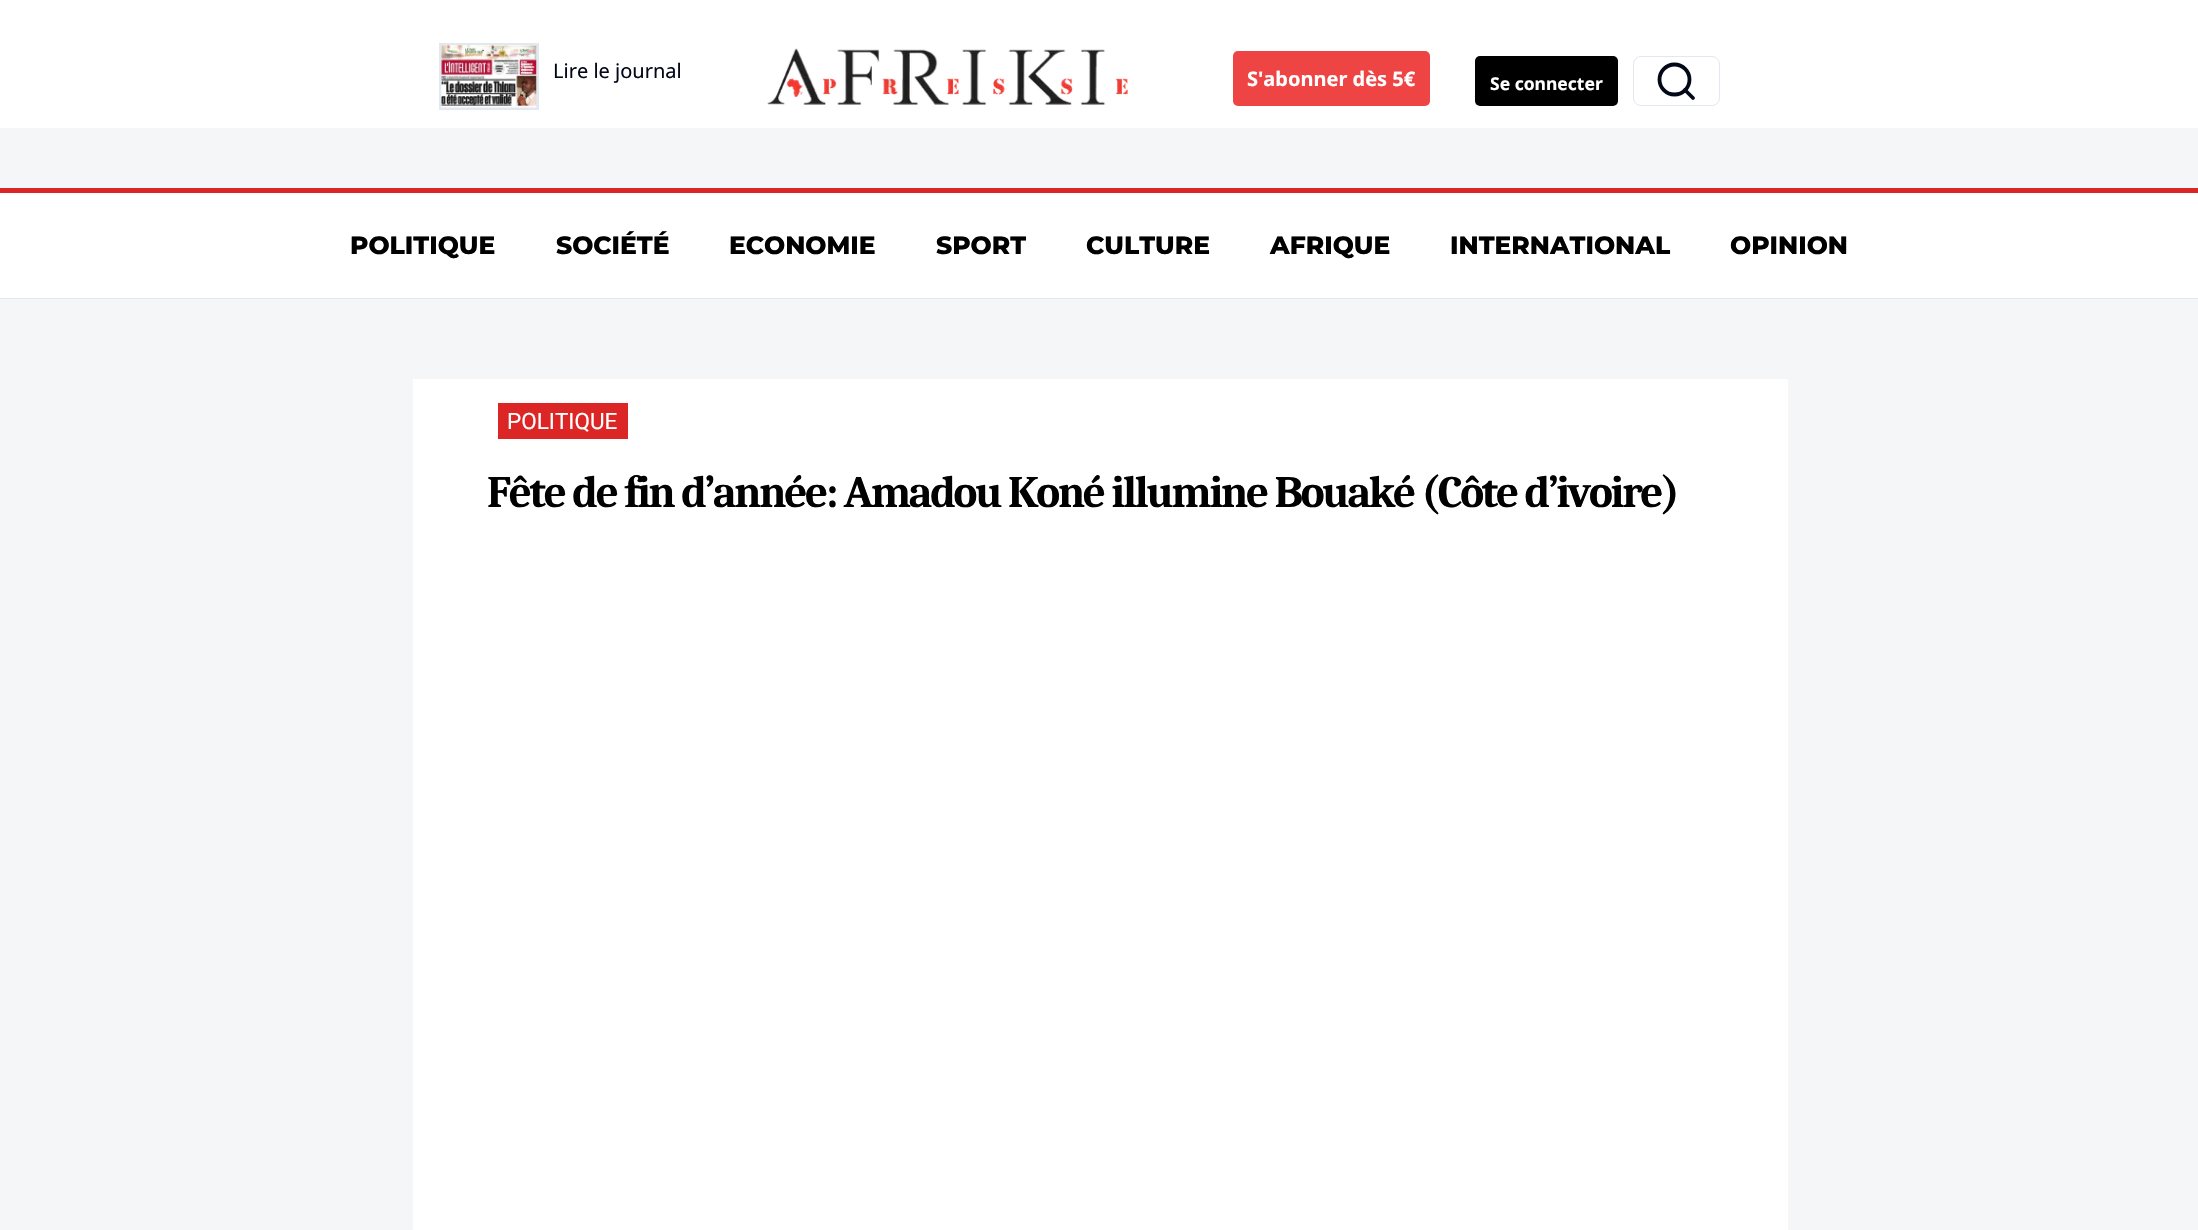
void draw(SkCanvas* canvas) {
	SkPaint paint;
	paint.setAntiAlias(true);
	auto spacedText = [&](const char* s, float x, float y, const SkFont& font, const SkPaint& ink, float letter, float word) {
		std::vector<SkGlyphID> glyphs(font.countText(s, strlen(s), SkTextEncoding::kUTF8));
		std::vector<float> xs(glyphs.size());
		font.textToGlyphs(s, strlen(s), SkTextEncoding::kUTF8, glyphs);
		font.getXPos(glyphs, xs, x);
		float extra = 0;
		for (size_t i = 0; i < glyphs.size(); i++) {
			xs[i] += extra;
			extra += letter + word * (glyphs[i] == font.unicharToGlyph(' '));
		}
		canvas->drawTextBlob(SkTextBlob::MakeFromPosHGlyphs(glyphs, xs, y, font), 0, 0, ink);
	};
	auto svgPath = [&](const char* data, bool evenOdd = false) {
		SkPath result = *SkParsePath::FromSVGString(data);
		if (evenOdd) result.setFillType(SkPathFillType::kEvenOdd);
		return result;
	};
	canvas->clear(0xffffffff);
	paint.setColor(0xfff5f6f8);
	canvas->drawRect(SkRect::MakeXYWH(0, 128, 2198, 1102), paint);
	paint.setStroke(true);
	paint.setStrokeWidth(3);
	paint.setColor(0xffe2e8f0);
	canvas->drawRect(SkRect::MakeXYWH(440.5, 44.5, 97, 64), paint);
	canvas->drawImageRect(SkImages::DeferredFromEncodedData(SkData::MakeFromFileName("img1.png")), SkRect::MakeXYWH(441, 45, 96, 63), SkSamplingOptions());
	SkFont f1(fontMgr->matchFamilyStyle("Noto Sans", SkFontStyle::Normal()), 20);
	f1.setSubpixel(true);
	paint.setStroke(false);
	paint.setColor(0xff020817);
	canvas->drawString("Lire le journal", 553, 78, f1, paint);
	canvas->drawImageRect(SkImages::DeferredFromEncodedData(SkData::MakeFromFileName("img2.png")), SkRect::MakeXYWH(767, 48, 361, 57), SkSamplingOptions());
	paint.setColor(0xffef4444);
	canvas->drawRoundRect(SkRect::MakeXYWH(1233, 51, 197, 55), 5, 5, paint);
	SkFont f2(fontMgr->matchFamilyStyle("Noto Sans", SkFontStyle::Bold()), 20);
	f2.setSubpixel(true);
	paint.setColor(0xffffffff);
	canvas->drawString("S'abonner dès 5€", 1247, 86, f2, paint);
	paint.setColor(0xff000000);
	canvas->drawRoundRect(SkRect::MakeXYWH(1475, 56, 143, 50), 5, 5, paint);
	SkFont f3(fontMgr->matchFamilyStyle("Noto Sans", SkFontStyle::Bold()), 17.5);
	f3.setSubpixel(true);
	paint.setColor(0xffffffff);
	canvas->drawString("Se connecter", 1490, 90, f3, paint);
	paint.setStroke(true);
	paint.setStrokeWidth(1);
	paint.setColor(0xffe2e8f0);
	canvas->drawRoundRect(SkRect::MakeXYWH(1633.5, 56.5, 86, 49), 7.5, 7.5, paint);
	paint.setStrokeWidth(3.8);
	paint.setColor(0xff020817);
	canvas->drawCircle(1674.5, 79.5, 15, paint);
	paint.setStrokeCap(SkPaint::kRound_Cap);
	paint.setStrokeJoin(SkPaint::kRound_Join);
	canvas->drawPath(svgPath("M1693 98L1685 90"), paint);
	paint.setStroke(false);
	paint.setColor(0xffffffff);
	canvas->drawRect(SkRect::MakeXYWH(0, 193, 2198, 105), paint);
	paint.setColor(0xffdc2626);
	canvas->drawRect(SkRect::MakeXYWH(0, 188, 2198, 5), paint);
	paint.setColor(0xffe5e7eb);
	canvas->drawRect(SkRect::MakeXYWH(0, 298, 2198, 1), paint);
	SkFont f4(fontMgr->matchFamilyStyle("Montserrat", SkFontStyle(100, SkFontStyle::kNormal_Width, SkFontStyle::kUpright_Slant)), 25);
	f4.setSubpixel(true);
	paint.setColor(0xff000000);
	canvas->drawString("POLITIQUE", 350, 254, f4, paint);
	canvas->drawString("SOCIÉTÉ", 556, 254, f4, paint);
	canvas->drawString("ECONOMIE", 729, 254, f4, paint);
	canvas->drawString("SPORT", 936, 254, f4, paint);
	canvas->drawString("CULTURE", 1086, 254, f4, paint);
	canvas->drawString("AFRIQUE", 1270, 254, f4, paint);
	canvas->drawString("INTERNATIONAL", 1450, 254, f4, paint);
	canvas->drawString("OPINION", 1730, 254, f4, paint);
	paint.setColor(0xffffffff);
	canvas->drawRect(SkRect::MakeXYWH(413, 379, 1375, 851), paint);
	paint.setColor(0xffdc2626);
	canvas->drawRect(SkRect::MakeXYWH(498, 403, 130, 36), paint);
	SkFont f5(fontMgr->matchFamilyStyle("Roboto", SkFontStyle::Normal()), 22.5);
	f5.setSubpixel(true);
	paint.setColor(0xffffffff);
	canvas->drawString("POLITIQUE", 507, 429, f5, paint);
	SkFont f6(fontMgr->matchFamilyStyle("Caladea", SkFontStyle::Bold()), 45);
	f6.setSubpixel(true);
	paint.setColor(0xff000000);
	spacedText("Fête de fin d’année: Amadou Koné illumine Bouaké (Côte d’ivoire)", 487, 507, f6, paint, -2.25, 0);
}
